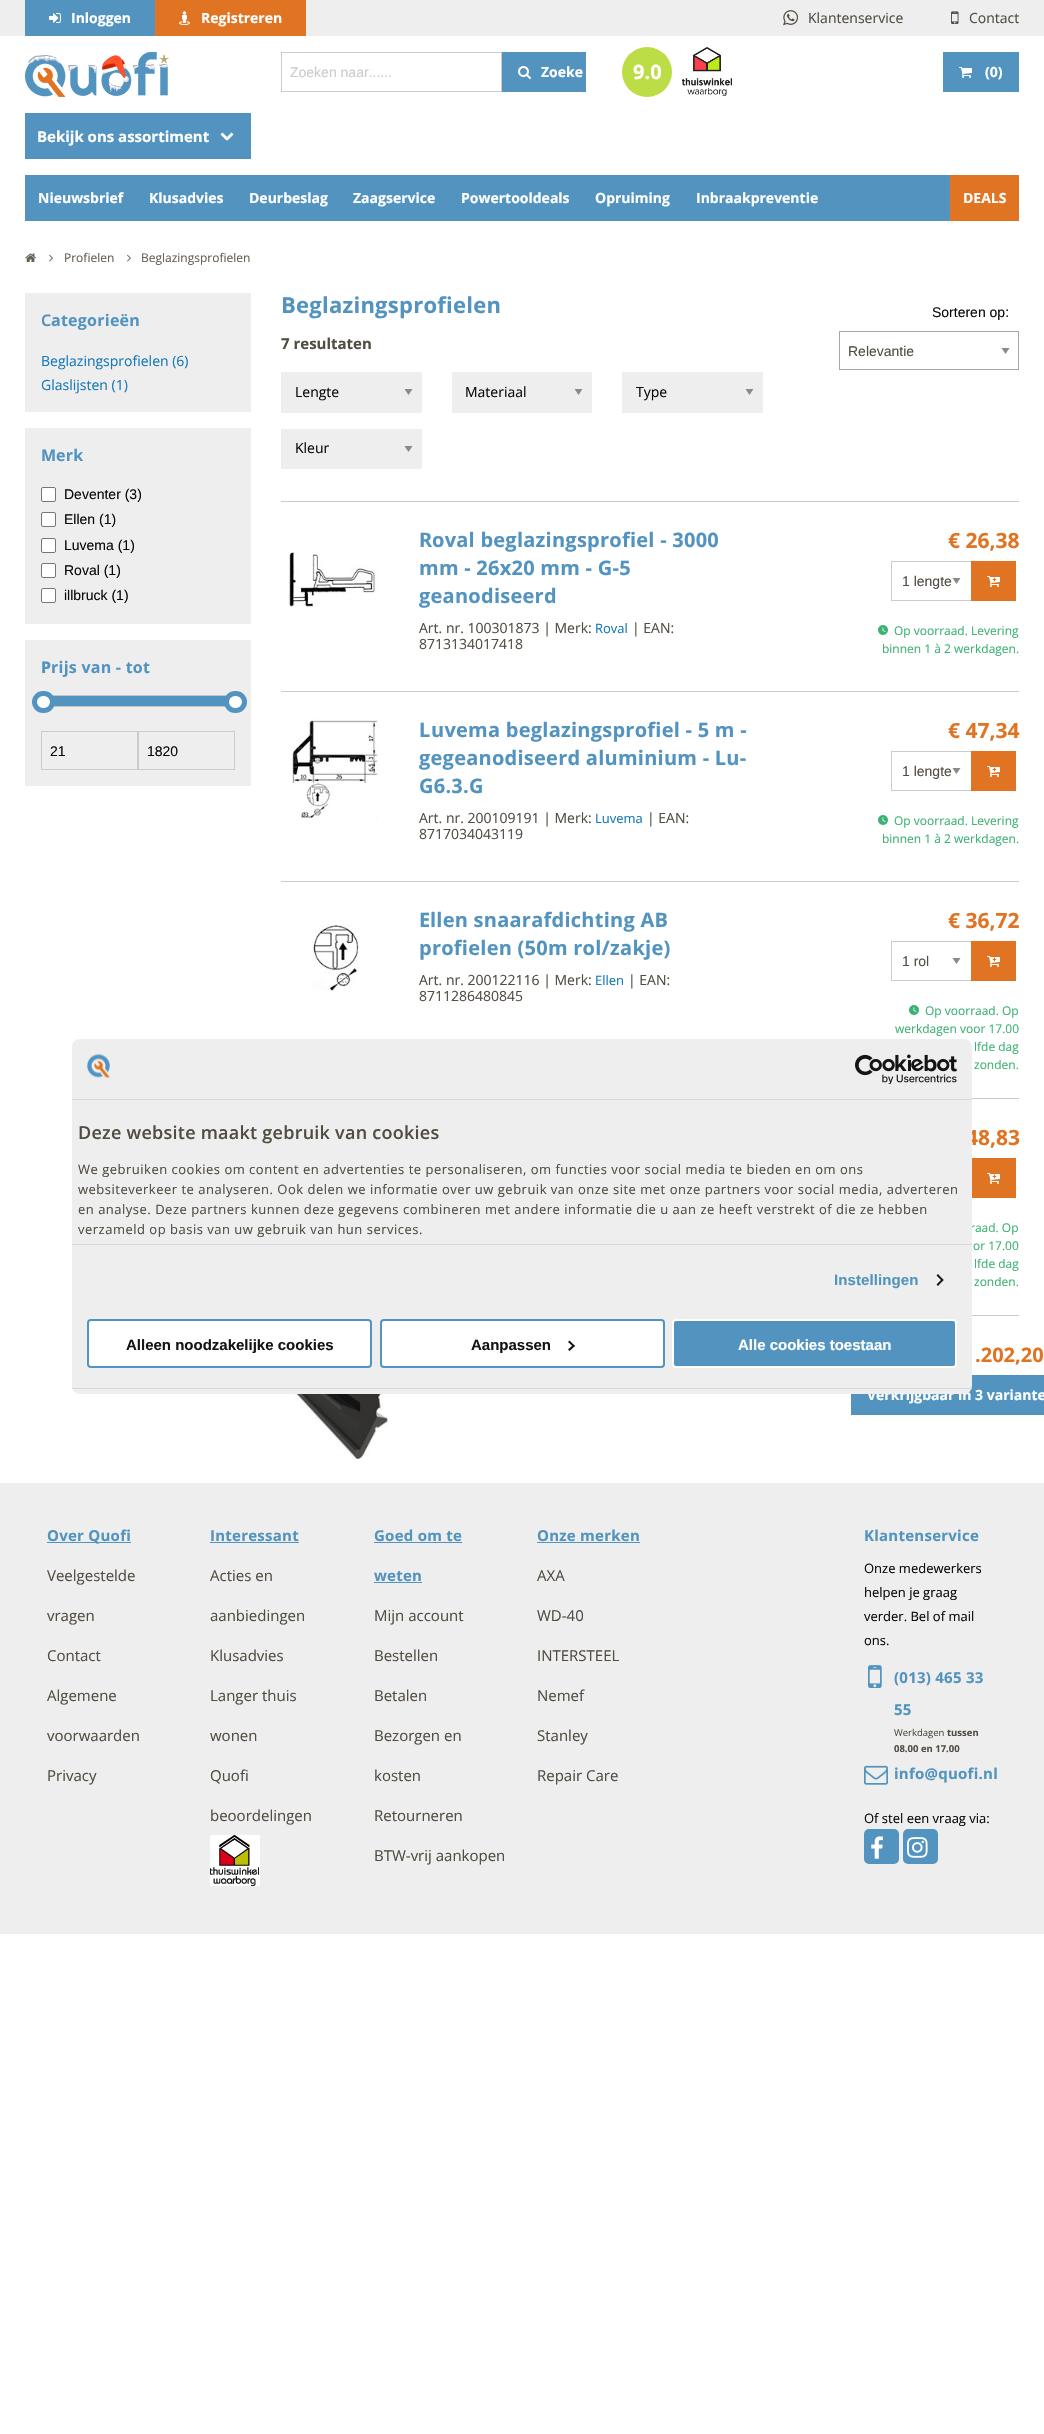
void draw(SkCanvas* canvas) {
	SkPaint paint;
	paint.setAntiAlias(true);
	auto spacedText = [&](const char* s, float x, float y, const SkFont& font, const SkPaint& ink, float letter, float word) {
		std::vector<SkGlyphID> glyphs(font.countText(s, strlen(s), SkTextEncoding::kUTF8));
		std::vector<float> xs(glyphs.size());
		font.textToGlyphs(s, strlen(s), SkTextEncoding::kUTF8, glyphs);
		font.getXPos(glyphs, xs, x);
		float extra = 0;
		for (size_t i = 0; i < glyphs.size(); i++) {
			xs[i] += extra;
			extra += letter + word * (glyphs[i] == font.unicharToGlyph(' '));
		}
		canvas->drawTextBlob(SkTextBlob::MakeFromPosHGlyphs(glyphs, xs, y, font), 0, 0, ink);
	};
	auto svgPath = [&](const char* data, bool evenOdd = false) {
		SkPath result = *SkParsePath::FromSVGString(data);
		if (evenOdd) result.setFillType(SkPathFillType::kEvenOdd);
		return result;
	};
	canvas->clear(0xffffffff);
	paint.setColor(0xffeeeeee);
	canvas->drawRect(SkRect::MakeXYWH(0, 0, 1044, 36), paint);
	paint.setColor(0xff5294bf);
	canvas->drawRect(SkRect::MakeXYWH(25, 0, 130, 36), paint);
	canvas->drawImageRect(SkImages::DeferredFromEncodedData(SkData::MakeFromFileName("img1.png")), SkRect::MakeXYWH(49, 13, 12, 10), SkSamplingOptions());
	SkFont f1(fontMgr->matchFamilyStyle("Open Sans", SkFontStyle::Bold()), 14);
	f1.setSubpixel(true);
	paint.setColor(0xffffffff);
	canvas->drawString("Inloggen", 71, 23, f1, paint);
	paint.setColor(0xffe07422);
	canvas->drawRect(SkRect::MakeXYWH(155, 0, 151, 36), paint);
	canvas->drawImageRect(SkImages::DeferredFromEncodedData(SkData::MakeFromFileName("img2.png")), SkRect::MakeXYWH(179, 11, 11, 14), SkSamplingOptions());
	paint.setColor(0xffffffff);
	canvas->drawString("Registreren", 201, 23, f1, paint);
	canvas->drawImageRect(SkImages::DeferredFromEncodedData(SkData::MakeFromFileName("img3.png")), SkRect::MakeXYWH(783, 10, 16, 16), SkSamplingOptions());
	SkFont f2(fontMgr->matchFamilyStyle("Open Sans", SkFontStyle::Normal()), 14);
	f2.setSubpixel(true);
	paint.setColor(0xff524d43);
	canvas->drawString("Klantenservice", 808, 23, f2, paint);
	canvas->drawImageRect(SkImages::DeferredFromEncodedData(SkData::MakeFromFileName("img4.png")), SkRect::MakeXYWH(951, 11, 8, 13), SkSamplingOptions());
	canvas->drawString("Contact", 969, 23, f2, paint);
	canvas->drawImageRect(SkImages::DeferredFromEncodedData(SkData::MakeFromFileName("img5.png")), SkRect::MakeXYWH(25, 52, 144, 45), SkSamplingOptions());
	paint.setStroke(true);
	paint.setStrokeWidth(1);
	paint.setColor(0xffcccccc);
	canvas->drawRect(SkRect::MakeXYWH(281.5, 52.5, 220, 39), paint);
	SkFont f3(fontMgr->matchFamilyStyle("Liberation Sans", SkFontStyle::Normal()), 14);
	f3.setSubpixel(true);
	paint.setStroke(false);
	canvas->drawString("Zoeken naar......", 290, 77, f3, paint);
	paint.setColor(0xff5294bf);
	canvas->drawRect(SkRect::MakeXYWH(502, 52, 84, 40), paint);
	canvas->drawImageRect(SkImages::DeferredFromEncodedData(SkData::MakeFromFileName("img6.png")), SkRect::MakeXYWH(518, 66, 13, 13), SkSamplingOptions());
	paint.setColor(0xffffffff);
	canvas->drawString("Zoeke", 541, 77, f1, paint);
	paint.setColor(0xffbcdd45);
	canvas->drawCircle(647, 72, 25, paint);
	SkFont f4(fontMgr->matchFamilyStyle("Open Sans", SkFontStyle::Bold()), 20);
	f4.setSubpixel(true);
	paint.setColor(0xffffffff);
	canvas->drawString("9.0", 633, 79, f4, paint);
	canvas->drawImageRect(SkImages::DeferredFromEncodedData(SkData::MakeFromFileName("img7.png")), SkRect::MakeXYWH(682, 47, 50, 49), SkSamplingOptions());
	paint.setColor(0xff5294bf);
	canvas->drawRect(SkRect::MakeXYWH(943, 52, 76, 40), paint);
	canvas->drawImageRect(SkImages::DeferredFromEncodedData(SkData::MakeFromFileName("img8.png")), SkRect::MakeXYWH(959, 67, 13, 11), SkSamplingOptions());
	paint.setColor(0xffffffff);
	canvas->drawString("(0)", 985, 77, f1, paint);
	paint.setColor(0xff5294bf);
	canvas->drawRect(SkRect::MakeXYWH(25, 113, 226, 46), paint);
	SkFont f5(fontMgr->matchFamilyStyle("Open Sans", SkFontStyle::Bold()), 15);
	f5.setSubpixel(true);
	paint.setColor(0xffffffff);
	canvas->drawString("Bekijk ons assortiment", 37, 142, f5, paint);
	canvas->drawPath(svgPath("M222.5 132.5L228.5 138.5L226.5 140.5L220.5 134.5Z"), paint);
	canvas->drawPath(svgPath("M225.5 138.5L231.5 132.5L233.5 134.5L227.5 140.5Z"), paint);
	paint.setColor(0xff5294bf);
	canvas->drawRect(SkRect::MakeXYWH(25, 175, 925, 46), paint);
	paint.setColor(0xffffffff);
	canvas->drawString("Nieuwsbrief", 38, 203, f1, paint);
	canvas->drawString("Klusadvies", 149, 203, f1, paint);
	canvas->drawString("Deurbeslag", 249, 203, f1, paint);
	canvas->drawString("Zaagservice", 353, 203, f1, paint);
	canvas->drawString("Powertooldeals", 461, 203, f1, paint);
	canvas->drawString("Opruiming", 595, 203, f1, paint);
	canvas->drawString("Inbraakpreventie", 696, 203, f1, paint);
	paint.setColor(0xffe07422);
	canvas->drawRect(SkRect::MakeXYWH(950, 175, 69, 46), paint);
	paint.setColor(0xffffffff);
	canvas->drawString("DEALS", 963, 203, f1, paint);
	canvas->drawImageRect(SkImages::DeferredFromEncodedData(SkData::MakeFromFileName("img9.png")), SkRect::MakeXYWH(25, 253, 11, 9), SkSamplingOptions());
	canvas->drawImageRect(SkImages::DeferredFromEncodedData(SkData::MakeFromFileName("img10.png")), SkRect::MakeXYWH(49, 254, 4, 8), SkSamplingOptions());
	SkFont f6(fontMgr->matchFamilyStyle("Open Sans", SkFontStyle::Normal()), 12);
	f6.setSubpixel(true);
	paint.setColor(0xff665f53);
	canvas->drawString("Profielen", 64, 262, f6, paint);
	canvas->drawImageRect(SkImages::DeferredFromEncodedData(SkData::MakeFromFileName("img10.png")), SkRect::MakeXYWH(127, 254, 4, 8), SkSamplingOptions());
	canvas->drawString("Beglazingsprofielen", 141, 262, f6, paint);
	paint.setColor(0xffeeeeee);
	canvas->drawRect(SkRect::MakeXYWH(25, 293, 226, 119), paint);
	SkFont f7(fontMgr->matchFamilyStyle("Noto Sans", SkFontStyle(600, SkFontStyle::kNormal_Width, SkFontStyle::kUpright_Slant)), 16);
	f7.setSubpixel(true);
	paint.setColor(0xff5294bf);
	spacedText("C", 41, 326, f7, paint, 0.25, 0);
	SkFont f8(fontMgr->matchFamilyStyle("Open Sans", SkFontStyle::Bold()), 16);
	f8.setSubpixel(true);
	spacedText("ategorieën", 51, 326, f8, paint, 0.25, 0);
	paint.setColor(0xff1779ba);
	canvas->drawString("Beglazingsprofielen (6)", 41, 366, f2, paint);
	canvas->drawString("Glaslijsten (1)", 41, 390, f2, paint);
	paint.setColor(0xffeeeeee);
	canvas->drawRect(SkRect::MakeXYWH(25, 428, 226, 196), paint);
	SkFont f9(fontMgr->matchFamilyStyle("Noto Sans", SkFontStyle::Bold()), 16);
	f9.setSubpixel(true);
	paint.setColor(0xff5294bf);
	spacedText("M", 41, 461, f9, paint, 0.25, 0);
	spacedText("erk", 56, 461, f8, paint, 0.25, 0);
	paint.setColor(0xffffffff);
	canvas->drawRoundRect(SkRect::MakeXYWH(41.5, 487.5, 14, 14), 1.5, 1.5, paint);
	paint.setStroke(true);
	paint.setColor(0xff767676);
	canvas->drawRoundRect(SkRect::MakeXYWH(41.5, 487.5, 14, 14), 1.5, 1.5, paint);
	paint.setStroke(false);
	paint.setColor(0xff0a0a0a);
	canvas->drawString("Deventer (3)", 64, 499, f3, paint);
	paint.setColor(0xffffffff);
	canvas->drawRoundRect(SkRect::MakeXYWH(41.5, 512.5, 14, 14), 1.5, 1.5, paint);
	paint.setStroke(true);
	paint.setColor(0xff767676);
	canvas->drawRoundRect(SkRect::MakeXYWH(41.5, 512.5, 14, 14), 1.5, 1.5, paint);
	paint.setStroke(false);
	paint.setColor(0xff0a0a0a);
	canvas->drawString("Ellen (1)", 64, 524, f3, paint);
	paint.setColor(0xffffffff);
	canvas->drawRoundRect(SkRect::MakeXYWH(41.5, 538.5, 14, 14), 1.5, 1.5, paint);
	paint.setStroke(true);
	paint.setColor(0xff767676);
	canvas->drawRoundRect(SkRect::MakeXYWH(41.5, 538.5, 14, 14), 1.5, 1.5, paint);
	paint.setStroke(false);
	paint.setColor(0xff0a0a0a);
	canvas->drawString("Luvema (1)", 64, 550, f3, paint);
	paint.setColor(0xffffffff);
	canvas->drawRoundRect(SkRect::MakeXYWH(41.5, 563.5, 14, 14), 1.5, 1.5, paint);
	paint.setStroke(true);
	paint.setColor(0xff767676);
	canvas->drawRoundRect(SkRect::MakeXYWH(41.5, 563.5, 14, 14), 1.5, 1.5, paint);
	paint.setStroke(false);
	paint.setColor(0xff0a0a0a);
	canvas->drawString("Roval (1)", 64, 575, f3, paint);
	paint.setColor(0xffffffff);
	canvas->drawRoundRect(SkRect::MakeXYWH(41.5, 588.5, 14, 14), 1.5, 1.5, paint);
	paint.setStroke(true);
	paint.setColor(0xff767676);
	canvas->drawRoundRect(SkRect::MakeXYWH(41.5, 588.5, 14, 14), 1.5, 1.5, paint);
	paint.setStroke(false);
	paint.setColor(0xff0a0a0a);
	canvas->drawString("illbruck (1)", 64, 600, f3, paint);
	paint.setColor(0xffeeeeee);
	canvas->drawRect(SkRect::MakeXYWH(25, 640, 226, 146), paint);
	SkFont f10(fontMgr->matchFamilyStyle("Noto Sans", SkFontStyle(800, SkFontStyle::kNormal_Width, SkFontStyle::kUpright_Slant)), 16);
	f10.setSubpixel(true);
	paint.setColor(0xff5294bf);
	spacedText("P", 41, 673, f10, paint, 0.25, 0);
	spacedText("rijs van - tot", 51, 673, f8, paint, 0.25, 0);
	paint.setStroke(true);
	paint.setColor(0xffc5c5c5);
	canvas->drawRect(SkRect::MakeXYWH(41.5, 695.5, 193, 11), paint);
	paint.setStroke(false);
	paint.setColor(0xff5294bf);
	canvas->drawRect(SkRect::MakeXYWH(53, 696, 173, 10), paint);
	paint.setColor(0xffffffff);
	canvas->drawRoundRect(SkRect::MakeXYWH(34.5, 693.5, 18, 17), 8.5, 8.5, paint);
	paint.setStroke(true);
	paint.setStrokeWidth(5);
	paint.setColor(0xff5294bf);
	canvas->drawRoundRect(SkRect::MakeXYWH(34.5, 693.5, 18, 17), 8.5, 8.5, paint);
	paint.setStroke(false);
	paint.setColor(0xffffffff);
	canvas->drawRoundRect(SkRect::MakeXYWH(226.5, 693.5, 18, 17), 8.5, 8.5, paint);
	paint.setStroke(true);
	paint.setColor(0xff5294bf);
	canvas->drawRoundRect(SkRect::MakeXYWH(226.5, 693.5, 18, 17), 8.5, 8.5, paint);
	paint.setStrokeWidth(1);
	paint.setColor(0xffcccccc);
	canvas->drawRect(SkRect::MakeXYWH(41.5, 731.5, 96, 38), paint);
	paint.setStroke(false);
	paint.setColor(0xff0a0a0a);
	canvas->drawString("21", 50, 756, f3, paint);
	paint.setStroke(true);
	paint.setColor(0xffcccccc);
	canvas->drawRect(SkRect::MakeXYWH(138.5, 731.5, 96, 38), paint);
	paint.setStroke(false);
	paint.setColor(0xff0a0a0a);
	canvas->drawString("1820", 147, 756, f3, paint);
	SkFont f11(fontMgr->matchFamilyStyle("Open Sans", SkFontStyle::Bold()), 22);
	f11.setSubpixel(true);
	paint.setColor(0xff5294bf);
	spacedText("Beglazingsprofielen", 281, 313, f11, paint, 0.25, 0);
	paint.setColor(0xff524d43);
	canvas->drawString("7 resultaten", 281, 349, f5, paint);
	paint.setColor(0xffeeeeee);
	canvas->drawRect(SkRect::MakeXYWH(281, 372, 141, 41), paint);
	paint.setColor(0xff8a8a8a);
	canvas->drawPath(svgPath("M404.5 389H412.5L408.5 395Z"), paint);
	paint.setColor(0xff0a0a0a);
	canvas->drawString("Lengte", 295, 397, f2, paint);
	paint.setColor(0xffeeeeee);
	canvas->drawRect(SkRect::MakeXYWH(452, 372, 140, 41), paint);
	paint.setColor(0xff8a8a8a);
	canvas->drawPath(svgPath("M574.5 389H582.5L578.5 395Z"), paint);
	paint.setColor(0xff0a0a0a);
	canvas->drawString("Materiaal", 465, 397, f2, paint);
	paint.setColor(0xffeeeeee);
	canvas->drawRect(SkRect::MakeXYWH(622, 372, 141, 41), paint);
	paint.setColor(0xff8a8a8a);
	canvas->drawPath(svgPath("M745.5 389H753.5L749.5 395Z"), paint);
	paint.setColor(0xff0a0a0a);
	canvas->drawString("Type", 636, 397, f2, paint);
	paint.setColor(0xffeeeeee);
	canvas->drawRect(SkRect::MakeXYWH(281, 429, 141, 40), paint);
	paint.setColor(0xff8a8a8a);
	canvas->drawPath(svgPath("M404.5 446H412.5L408.5 452Z"), paint);
	paint.setColor(0xff0a0a0a);
	canvas->drawString("Kleur", 295, 453, f2, paint);
	canvas->drawString("Sorteren op:", 932, 317, f3, paint);
	paint.setColor(0xff8a8a8a);
	canvas->drawPath(svgPath("M1001.5 348H1009.5L1005.5 354Z"), paint);
	paint.setStroke(true);
	paint.setColor(0xffa9a6a1);
	canvas->drawRect(SkRect::MakeXYWH(839.5, 331.5, 179, 38), paint);
	paint.setStroke(false);
	paint.setColor(0xff524d43);
	canvas->drawString("Relevantie", 848, 356, f3, paint);
	paint.setColor(0xffcccccc);
	canvas->drawRect(SkRect::MakeXYWH(281, 501, 738, 1), paint);
	canvas->drawImageRect(SkImages::DeferredFromEncodedData(SkData::MakeFromFileName("img11.png")), SkRect::MakeXYWH(287, 552, 92, 55), SkSamplingOptions());
	SkFont f12(fontMgr->matchFamilyStyle("Noto Sans", SkFontStyle::Bold()), 20);
	f12.setSubpixel(true);
	paint.setColor(0xff5294bf);
	spacedText("R", 419, 547, f12, paint, 0.25, 0);
	spacedText("oval beglazingsprofiel - 3000", 432, 547, f4, paint, 0.25, 0);
	spacedText("mm - 26x20 mm - G-5", 419, 575, f4, paint, 0.25, 0);
	spacedText("geanodiseerd", 419, 603, f4, paint, 0.25, 0);
	paint.setColor(0xff524d43);
	canvas->drawString("Art. nr. 100301873 | Merk:", 419, 633, f2, paint);
	SkFont f13(fontMgr->matchFamilyStyle("Open Sans", SkFontStyle::Normal()), 13);
	f13.setSubpixel(true);
	paint.setColor(0xff1779ba);
	canvas->drawString("Roval", 595, 633, f13, paint);
	paint.setColor(0xff524d43);
	canvas->drawString("| EAN:", 632, 633, f2, paint);
	canvas->drawString("8713134017418", 419, 649, f2, paint);
	SkFont f14(fontMgr->matchFamilyStyle("Open Sans", SkFontStyle::Bold()), 21);
	f14.setSubpixel(true);
	paint.setColor(0xffe07422);
	canvas->drawString("€ 26,38", 948, 548, f14, paint);
	paint.setColor(0xff8a8a8a);
	canvas->drawPath(svgPath("M952.5 578H960.5L956.5 584Z"), paint);
	paint.setColor(0xffcccccc);
	canvas->drawRect(SkRect::MakeXYWH(891, 561, 80, 1), paint);
	canvas->drawRect(SkRect::MakeXYWH(891, 600, 80, 1), paint);
	canvas->drawRect(SkRect::MakeXYWH(891, 561, 1, 40), paint);
	paint.setColor(0xff524d43);
	canvas->drawString("1 lengte", 902, 586, f3, paint);
	paint.setColor(0xffe07422);
	canvas->drawRect(SkRect::MakeXYWH(971, 561, 45, 40), paint);
	canvas->drawImageRect(SkImages::DeferredFromEncodedData(SkData::MakeFromFileName("img12.png")), SkRect::MakeXYWH(987, 576, 13, 11), SkSamplingOptions());
	canvas->drawImageRect(SkImages::DeferredFromEncodedData(SkData::MakeFromFileName("img13.png")), SkRect::MakeXYWH(878, 625, 10, 10), SkSamplingOptions());
	paint.setColor(0xff3bb273);
	canvas->drawString("Op voorraad. Levering", 894, 635, f6, paint);
	canvas->drawString("binnen 1 à 2 werkdagen.", 882, 653, f6, paint);
	paint.setColor(0xffcccccc);
	canvas->drawRect(SkRect::MakeXYWH(281, 691, 738, 1), paint);
	canvas->drawImageRect(SkImages::DeferredFromEncodedData(SkData::MakeFromFileName("img14.png")), SkRect::MakeXYWH(291, 719, 88, 102), SkSamplingOptions());
	paint.setColor(0xff5294bf);
	spacedText("L", 419, 737, f12, paint, 0.25, 0);
	spacedText("uvema beglazingsprofiel - 5 m -", 431, 737, f4, paint, 0.25, 0);
	spacedText("gegeanodiseerd aluminium - Lu-", 419, 765, f4, paint, 0.25, 0);
	spacedText("G6.3.G", 419, 793, f4, paint, 0.25, 0);
	paint.setColor(0xff524d43);
	canvas->drawString("Art. nr. 200109191 | Merk:", 419, 823, f2, paint);
	paint.setColor(0xff1779ba);
	canvas->drawString("Luvema", 595, 823, f13, paint);
	paint.setColor(0xff524d43);
	canvas->drawString("| EAN:", 647, 823, f2, paint);
	canvas->drawString("8717034043119", 419, 839, f2, paint);
	paint.setColor(0xffe07422);
	canvas->drawString("€ 47,34", 948, 738, f14, paint);
	paint.setColor(0xff8a8a8a);
	canvas->drawPath(svgPath("M952.5 768H960.5L956.5 774Z"), paint);
	paint.setColor(0xffcccccc);
	canvas->drawRect(SkRect::MakeXYWH(891, 751, 80, 1), paint);
	canvas->drawRect(SkRect::MakeXYWH(891, 790, 80, 1), paint);
	canvas->drawRect(SkRect::MakeXYWH(891, 751, 1, 40), paint);
	paint.setColor(0xff524d43);
	canvas->drawString("1 lengte", 902, 776, f3, paint);
	paint.setColor(0xffe07422);
	canvas->drawRect(SkRect::MakeXYWH(971, 751, 45, 40), paint);
	canvas->drawImageRect(SkImages::DeferredFromEncodedData(SkData::MakeFromFileName("img12.png")), SkRect::MakeXYWH(987, 766, 13, 11), SkSamplingOptions());
	canvas->drawImageRect(SkImages::DeferredFromEncodedData(SkData::MakeFromFileName("img13.png")), SkRect::MakeXYWH(878, 815, 10, 10), SkSamplingOptions());
	paint.setColor(0xff3bb273);
	canvas->drawString("Op voorraad. Levering", 894, 825, f6, paint);
	canvas->drawString("binnen 1 à 2 werkdagen.", 882, 843, f6, paint);
	paint.setColor(0xffcccccc);
	canvas->drawRect(SkRect::MakeXYWH(281, 881, 738, 1), paint);
	canvas->drawImageRect(SkImages::DeferredFromEncodedData(SkData::MakeFromFileName("img15.png")), SkRect::MakeXYWH(312, 925, 47, 67), SkSamplingOptions());
	paint.setColor(0xff5294bf);
	spacedText("E", 419, 927, f12, paint, 0.25, 0);
	spacedText("llen snaarafdichting AB", 430, 927, f4, paint, 0.25, 0);
	spacedText("profielen (50m rol/zakje)", 419, 955, f4, paint, 0.25, 0);
	paint.setColor(0xff524d43);
	canvas->drawString("Art. nr. 200122116 | Merk:", 419, 985, f2, paint);
	paint.setColor(0xff1779ba);
	canvas->drawString("Ellen", 595, 985, f13, paint);
	paint.setColor(0xff524d43);
	canvas->drawString("| EAN:", 628, 985, f2, paint);
	canvas->drawString("8711286480845", 419, 1001, f2, paint);
	paint.setColor(0xffe07422);
	canvas->drawString("€ 36,72", 948, 928, f14, paint);
	paint.setColor(0xff8a8a8a);
	canvas->drawPath(svgPath("M952.5 958H960.5L956.5 964Z"), paint);
	paint.setColor(0xffcccccc);
	canvas->drawRect(SkRect::MakeXYWH(891, 941, 80, 1), paint);
	canvas->drawRect(SkRect::MakeXYWH(891, 980, 80, 1), paint);
	canvas->drawRect(SkRect::MakeXYWH(891, 941, 1, 40), paint);
	paint.setColor(0xff524d43);
	canvas->drawString("1 rol", 902, 966, f3, paint);
	paint.setColor(0xffe07422);
	canvas->drawRect(SkRect::MakeXYWH(971, 941, 45, 40), paint);
	canvas->drawImageRect(SkImages::DeferredFromEncodedData(SkData::MakeFromFileName("img12.png")), SkRect::MakeXYWH(987, 956, 13, 11), SkSamplingOptions());
	canvas->drawImageRect(SkImages::DeferredFromEncodedData(SkData::MakeFromFileName("img13.png")), SkRect::MakeXYWH(909, 1005, 10, 10), SkSamplingOptions());
	paint.setColor(0xff3bb273);
	canvas->drawString("Op voorraad. Op", 925, 1015, f6, paint);
	canvas->drawString("werkdagen voor 17.00", 895, 1033, f6, paint);
	canvas->drawString("lfde dag", 974, 1051, f6, paint);
	canvas->drawString("zonden.", 974, 1069, f6, paint);
	paint.setColor(0xffcccccc);
	canvas->drawRect(SkRect::MakeXYWH(972, 1098, 47, 1), paint);
	paint.setColor(0xffe07422);
	canvas->drawString("48,83", 966, 1145, f14, paint);
	canvas->drawRect(SkRect::MakeXYWH(972, 1158, 44, 40), paint);
	canvas->drawImageRect(SkImages::DeferredFromEncodedData(SkData::MakeFromFileName("img12.png")), SkRect::MakeXYWH(987, 1173, 13, 11), SkSamplingOptions());
	paint.setColor(0xff3bb273);
	canvas->drawString("raad. Op", 970, 1232, f6, paint);
	canvas->drawString("or 17.00", 973, 1250, f6, paint);
	canvas->drawString("lfde dag", 974, 1268, f6, paint);
	canvas->drawString("zonden.", 974, 1286, f6, paint);
	paint.setColor(0xffcccccc);
	canvas->drawRect(SkRect::MakeXYWH(972, 1315, 47, 1), paint);
	paint.setColor(0xffe07422);
	canvas->drawString(".202,20", 975, 1362, f4, paint);
	paint.setColor(0xff5294bf);
	canvas->drawRect(SkRect::MakeXYWH(851, 1375, 193, 40), paint);
	paint.setColor(0xffffffff);
	canvas->drawString("Verkrijgbaar in 3 variante", 867, 1400, f1, paint);
	canvas->drawImageRect(SkImages::DeferredFromEncodedData(SkData::MakeFromFileName("img16.png")), SkRect::MakeXYWH(281, 1394, 108, 65), SkSamplingOptions());
	paint.setColor(0xffeeeeee);
	canvas->drawRect(SkRect::MakeXYWH(0, 1483, 1044, 451), paint);
	paint.setColor(0xff5294bf);
	canvas->drawRect(SkRect::MakeXYWH(47, 1542, 84, 1), paint);
	spacedText("Over Quofi", 47, 1541, f5, paint, 0.25, 0);
	SkFont f15(fontMgr->matchFamilyStyle("Open Sans", SkFontStyle::Normal()), 15);
	f15.setSubpixel(true);
	paint.setColor(0xff524d43);
	canvas->drawString("Veelgestelde", 47, 1581, f15, paint);
	canvas->drawString("vragen", 47, 1621, f15, paint);
	canvas->drawString("Contact", 47, 1661, f15, paint);
	canvas->drawString("Algemene", 47, 1701, f15, paint);
	canvas->drawString("voorwaarden", 47, 1741, f15, paint);
	canvas->drawString("Privacy", 47, 1781, f15, paint);
	paint.setColor(0xff5294bf);
	spacedText("Interessant", 210, 1541, f5, paint, 0.25, 0);
	canvas->drawRect(SkRect::MakeXYWH(210, 1542, 89, 1), paint);
	paint.setColor(0xff524d43);
	canvas->drawString("Acties en", 210, 1581, f15, paint);
	canvas->drawString("aanbiedingen", 210, 1621, f15, paint);
	canvas->drawString("Klusadvies", 210, 1661, f15, paint);
	canvas->drawString("Langer thuis", 210, 1701, f15, paint);
	canvas->drawString("wonen", 210, 1741, f15, paint);
	canvas->drawString("Quofi", 210, 1781, f15, paint);
	canvas->drawString("beoordelingen", 210, 1821, f15, paint);
	canvas->drawImageRect(SkImages::DeferredFromEncodedData(SkData::MakeFromFileName("img17.png")), SkRect::MakeXYWH(210, 1835, 50, 51), SkSamplingOptions());
	paint.setColor(0xff5294bf);
	spacedText("Goed om te", 374, 1541, f5, paint, 0.25, 0);
	canvas->drawRect(SkRect::MakeXYWH(374, 1542, 88, 1), paint);
	spacedText("weten", 374, 1581, f5, paint, 0.25, 0);
	canvas->drawRect(SkRect::MakeXYWH(374, 1582, 48, 1), paint);
	paint.setColor(0xff524d43);
	canvas->drawString("Mijn account", 374, 1621, f15, paint);
	canvas->drawString("Bestellen", 374, 1661, f15, paint);
	canvas->drawString("Betalen", 374, 1701, f15, paint);
	canvas->drawString("Bezorgen en", 374, 1741, f15, paint);
	canvas->drawString("kosten", 374, 1781, f15, paint);
	canvas->drawString("Retourneren", 374, 1821, f15, paint);
	canvas->drawString("BTW-vrij aankopen", 374, 1861, f15, paint);
	paint.setColor(0xff5294bf);
	spacedText("Onze merken", 537, 1541, f5, paint, 0.25, 0);
	canvas->drawRect(SkRect::MakeXYWH(537, 1542, 103, 1), paint);
	paint.setColor(0xff524d43);
	canvas->drawString("AXA", 537, 1581, f15, paint);
	canvas->drawString("WD-40", 537, 1621, f15, paint);
	canvas->drawString("INTERSTEEL", 537, 1661, f15, paint);
	canvas->drawString("Nemef", 537, 1701, f15, paint);
	canvas->drawString("Stanley", 537, 1741, f15, paint);
	canvas->drawString("Repair Care", 537, 1781, f15, paint);
	paint.setColor(0xff5294bf);
	spacedText("Klantenservice", 864, 1541, f5, paint, 0.25, 0);
	paint.setColor(0xff0a0a0a);
	canvas->drawString("Onze medewerkers", 864, 1573, f13, paint);
	canvas->drawString("helpen je graag", 864, 1597, f13, paint);
	canvas->drawString("verder. Bel of mail", 864, 1621, f13, paint);
	canvas->drawString("ons.", 864, 1645, f13, paint);
	canvas->drawImageRect(SkImages::DeferredFromEncodedData(SkData::MakeFromFileName("img18.png")), SkRect::MakeXYWH(868, 1665, 14, 23), SkSamplingOptions());
	paint.setColor(0xff5294bf);
	spacedText("(013) 465 33", 894, 1683, f5, paint, 0.25, 0);
	spacedText("55", 894, 1715, f5, paint, 0.25, 0);
	SkFont f16(fontMgr->matchFamilyStyle("Open Sans", SkFontStyle::Normal()), 9.5);
	f16.setSubpixel(true);
	paint.setColor(0xff524d43);
	canvas->drawString("Werkdagen", 894, 1736, f16, paint);
	SkFont f17(fontMgr->matchFamilyStyle("Open Sans", SkFontStyle::Bold()), 9.5);
	f17.setSubpixel(true);
	canvas->drawString("tussen", 947, 1736, f17, paint);
	canvas->drawString("08.00 en 17.00", 894, 1752, f17, paint);
	canvas->drawImageRect(SkImages::DeferredFromEncodedData(SkData::MakeFromFileName("img19.png")), SkRect::MakeXYWH(864, 1765, 24, 20), SkSamplingOptions());
	paint.setColor(0xff5294bf);
	spacedText("info@quofi.nl", 894, 1779, f5, paint, 0.25, 0);
	paint.setColor(0xff0a0a0a);
	canvas->drawString("Of stel een vraag via:", 864, 1823, f13, paint);
	paint.setColor(0xff5294bf);
	canvas->drawRoundRect(SkRect::MakeXYWH(864, 1829, 35, 35), 5, 5, paint);
	canvas->drawImageRect(SkImages::DeferredFromEncodedData(SkData::MakeFromFileName("img20.png")), SkRect::MakeXYWH(871, 1836, 12, 23), SkSamplingOptions());
	canvas->drawRoundRect(SkRect::MakeXYWH(903, 1829, 35, 35), 5, 5, paint);
	canvas->drawImageRect(SkImages::DeferredFromEncodedData(SkData::MakeFromFileName("img21.png")), SkRect::MakeXYWH(907, 1837, 21, 21), SkSamplingOptions());
	paint.setColor(0xffeeeeee);
	canvas->drawRoundRect(SkRect::MakeXYWH(72, 1039, 900, 355), 8, 8, paint);
	paint.setColor(0xffd6d6d6);
	canvas->drawRect(SkRect::MakeXYWH(72, 1099, 900, 1), paint);
	canvas->drawImageRect(SkImages::DeferredFromEncodedData(SkData::MakeFromFileName("img22.png")), SkRect::MakeXYWH(87, 1054, 23, 24), SkSamplingOptions());
	canvas->drawImageRect(SkImages::DeferredFromEncodedData(SkData::MakeFromFileName("img23.png")), SkRect::MakeXYWH(855, 1054, 102, 30), SkSamplingOptions());
	canvas->drawRect(SkRect::MakeXYWH(72, 1244, 900, 1), paint);
	SkFont f18(fontMgr->matchFamilyStyle("Open Sans", SkFontStyle(600, SkFontStyle::kNormal_Width, SkFontStyle::kUpright_Slant)), 18);
	f18.setSubpixel(true);
	paint.setColor(0xff524d43);
	spacedText("Deze website maakt gebruik van cookies", 78, 1139, f18, paint, 0.25, 0);
	spacedText("We gebruiken cookies om content en advertenties te personaliseren, om functies voor social media te bieden en om ons", 78, 1174, f13, paint, 0.5, 0);
	spacedText("websiteverkeer te analyseren. Ook delen we informatie over uw gebruik van onze site met onze partners voor social media, adverteren", 78, 1194, f13, paint, 0.5, 0);
	spacedText("en analyse. Deze partners kunnen deze gegevens combineren met andere informatie die u aan ze heeft verstrekt of die ze hebben", 78, 1214, f13, paint, 0.5, 0);
	spacedText("verzameld op basis van uw gebruik van hun services.", 78, 1234, f13, paint, 0.5, 0);
	SkFont f19(fontMgr->matchFamilyStyle("Liberation Sans", SkFontStyle::Bold()), 15);
	f19.setSubpixel(true);
	paint.setColor(0xff5294bf);
	spacedText("Instellingen", 834, 1285, f19, paint, 0.1, 0);
	paint.setColor(0xff141414);
	canvas->drawPath(svgPath("M938 1274L943.5 1280L942.5 1281.5L936.5 1275.5Z"), paint);
	canvas->drawPath(svgPath("M942.5 1278.5L943.5 1280L938 1286L936.5 1284.5Z"), paint);
	paint.setColor(0xffd6d6d6);
	canvas->drawRect(SkRect::MakeXYWH(72, 1388, 900, 1), paint);
	paint.setColor(0xffffffff);
	canvas->drawRoundRect(SkRect::MakeXYWH(88, 1320, 283, 47), 3, 3, paint);
	paint.setStroke(true);
	paint.setStrokeWidth(2);
	paint.setColor(0xff5294bf);
	canvas->drawRoundRect(SkRect::MakeXYWH(88, 1320, 283, 47), 3, 3, paint);
	paint.setStroke(false);
	paint.setColor(0xff141414);
	canvas->drawString("Alleen noodzakelijke cookies", 126, 1350, f19, paint);
	paint.setColor(0xffffffff);
	canvas->drawRoundRect(SkRect::MakeXYWH(381, 1320, 283, 47), 3, 3, paint);
	paint.setStroke(true);
	paint.setColor(0xff5294bf);
	canvas->drawRoundRect(SkRect::MakeXYWH(381, 1320, 283, 47), 3, 3, paint);
	paint.setStroke(false);
	paint.setColor(0xff141414);
	canvas->drawString("Aanpassen", 471, 1350, f19, paint);
	canvas->drawPath(svgPath("M569.5 1340.5L575 1346L573.5 1347L568 1342Z"), paint);
	canvas->drawPath(svgPath("M573.5 1344.5L575 1346L569.5 1351L568 1349.5Z"), paint);
	paint.setColor(0xff5294bf);
	canvas->drawRoundRect(SkRect::MakeXYWH(673, 1320, 283, 47), 3, 3, paint);
	paint.setStroke(true);
	paint.setColor(0xffffffff);
	canvas->drawRoundRect(SkRect::MakeXYWH(673, 1320, 283, 47), 3, 3, paint);
	paint.setStroke(false);
	canvas->drawString("Alle cookies toestaan", 738, 1350, f19, paint);
}
